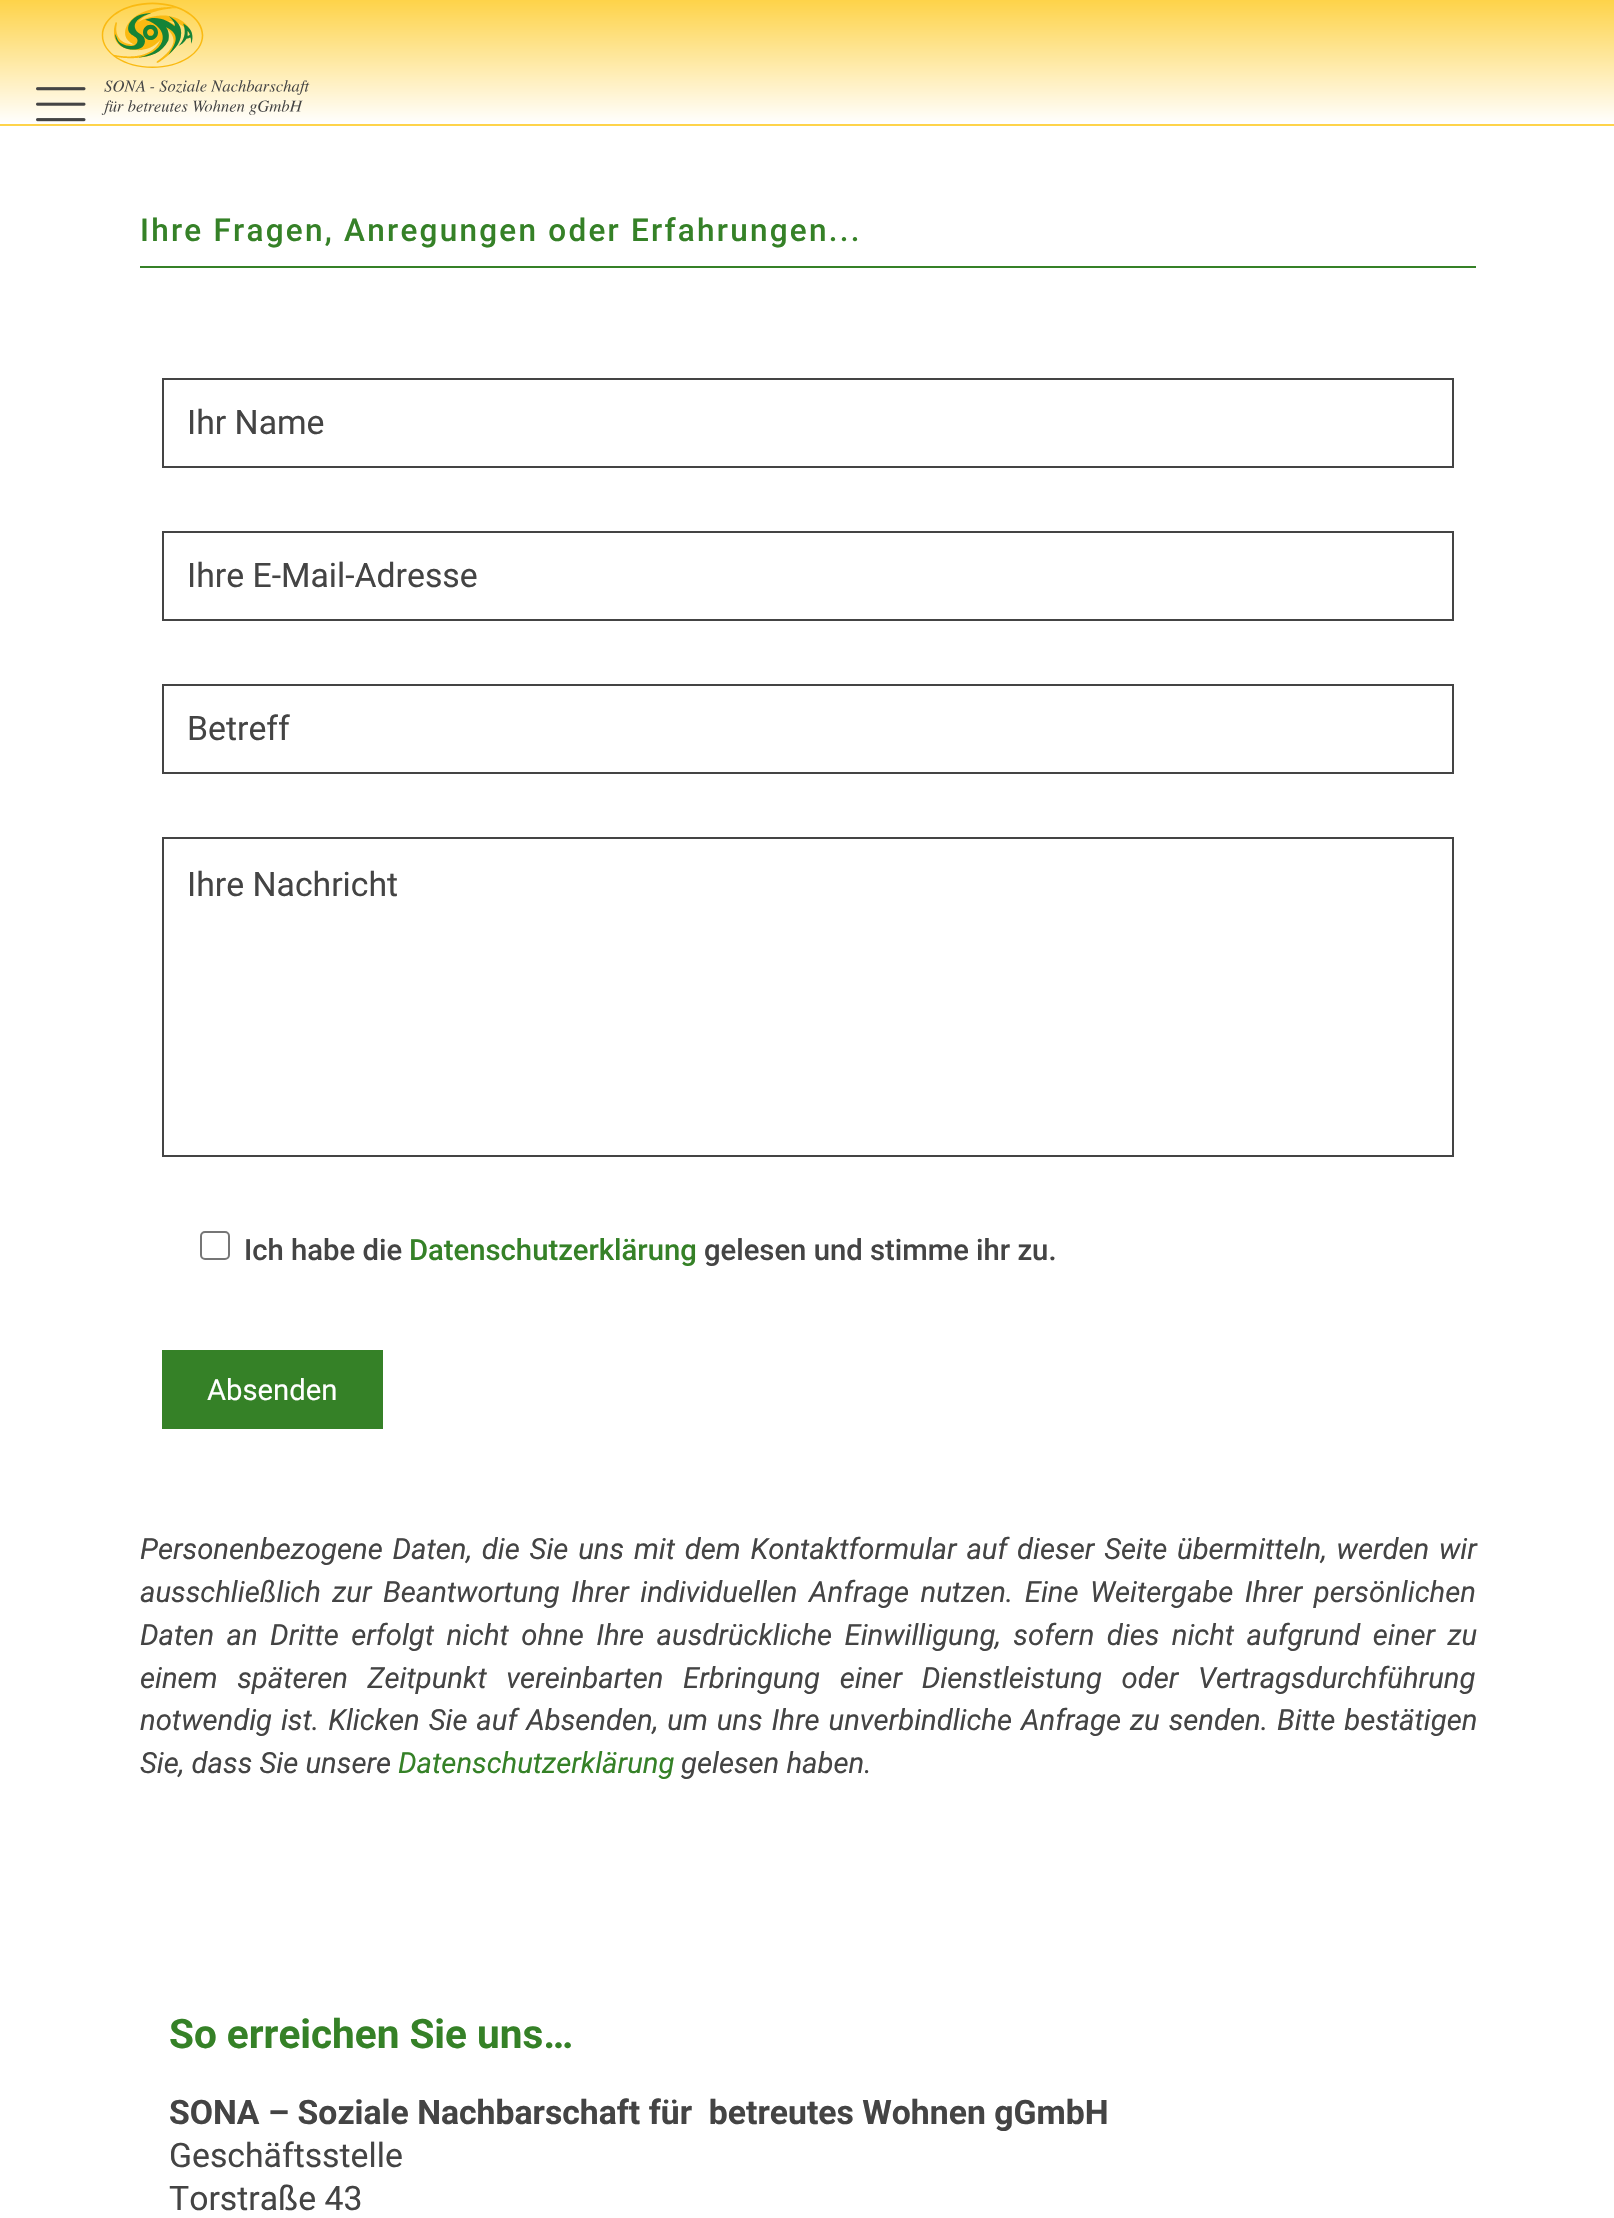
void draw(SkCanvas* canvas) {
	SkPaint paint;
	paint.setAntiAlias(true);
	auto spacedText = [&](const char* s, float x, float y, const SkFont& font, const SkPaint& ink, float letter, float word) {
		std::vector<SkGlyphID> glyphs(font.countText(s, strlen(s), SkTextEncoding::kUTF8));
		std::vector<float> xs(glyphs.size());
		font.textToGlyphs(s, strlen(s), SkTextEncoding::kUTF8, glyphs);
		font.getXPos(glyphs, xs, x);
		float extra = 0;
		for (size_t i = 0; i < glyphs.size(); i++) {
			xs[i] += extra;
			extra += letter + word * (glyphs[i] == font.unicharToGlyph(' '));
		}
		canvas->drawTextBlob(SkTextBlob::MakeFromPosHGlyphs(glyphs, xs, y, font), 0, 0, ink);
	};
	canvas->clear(0xffffffff);
	{
		const SkColor colors[] = {0xfffed349, 0xffffffff};
		const float stops[] = {0, 1};
		const SkPoint ends[] = {{808, 0}, {808, 124}};
		paint.setShader(SkGradientShader::MakeLinear(ends, colors, stops, 2, SkTileMode::kClamp));
		paint.setAlpha(255);
	}
	canvas->drawRect(SkRect::MakeXYWH(0, 0, 1614, 122), paint);
	{
		const SkColor colors[] = {0xfffed349, 0xffffffff};
		const float stops[] = {0, 1};
		const SkPoint ends[] = {{808, 124}, {808, 248}};
		paint.setShader(SkGradientShader::MakeLinear(ends, colors, stops, 2, SkTileMode::kClamp));
		paint.setAlpha(255);
	}
	canvas->drawRect(SkRect::MakeXYWH(0, 124, 1614, 2), paint);
	canvas->drawImageRect(SkImages::DeferredFromEncodedData(SkData::MakeFromFileName("img1.png")), SkRect::MakeXYWH(36, 87, 50, 35), SkSamplingOptions());
	canvas->drawImageRect(SkImages::DeferredFromEncodedData(SkData::MakeFromFileName("img2.png")), SkRect::MakeXYWH(101, 2, 209, 113), SkSamplingOptions());
	paint.setShader(nullptr);
	paint.setColor(0xff358127);
	canvas->drawRect(SkRect::MakeXYWH(140, 266, 1336, 2), paint);
	SkFont f1(fontMgr->matchFamilyStyle("Roboto", SkFontStyle(500, SkFontStyle::kNormal_Width, SkFontStyle::kUpright_Slant)), 31.5);
	f1.setSubpixel(true);
	spacedText("Ihre Fragen, Anregungen oder Erfahrungen...", 140, 241, f1, paint, 2.25, 0);
	paint.setStroke(true);
	paint.setStrokeWidth(2);
	paint.setColor(0xff444444);
	canvas->drawRect(SkRect::MakeXYWH(163, 379, 1290, 88), paint);
	SkFont f2(fontMgr->matchFamilyStyle("Roboto", SkFontStyle::Normal()), 33.75);
	f2.setSubpixel(true);
	paint.setStroke(false);
	canvas->drawString("Ihr Name", 187, 434, f2, paint);
	paint.setStroke(true);
	canvas->drawRect(SkRect::MakeXYWH(163, 532, 1290, 88), paint);
	paint.setStroke(false);
	canvas->drawString("Ihre E-Mail-Adresse", 187, 587, f2, paint);
	paint.setStroke(true);
	canvas->drawRect(SkRect::MakeXYWH(163, 685, 1290, 88), paint);
	paint.setStroke(false);
	canvas->drawString("Betreff", 187, 740, f2, paint);
	paint.setStroke(true);
	canvas->drawRect(SkRect::MakeXYWH(163, 838, 1290, 318), paint);
	paint.setStroke(false);
	canvas->drawString("Ihre Nachricht", 187, 896, f2, paint);
	paint.setStroke(true);
	paint.setColor(0xff767676);
	canvas->drawRoundRect(SkRect::MakeXYWH(201, 1232, 28, 27), 4, 4, paint);
	SkFont f3(fontMgr->matchFamilyStyle("Roboto", SkFontStyle(500, SkFontStyle::kNormal_Width, SkFontStyle::kUpright_Slant)), 29.25);
	f3.setSubpixel(true);
	paint.setStroke(false);
	paint.setColor(0xff444444);
	canvas->drawString("Ich habe die", 244, 1260, f3, paint);
	paint.setColor(0xff358127);
	canvas->drawString("Datenschutzerklärung", 409, 1260, f3, paint);
	paint.setColor(0xff444444);
	canvas->drawString("gelesen und stimme ihr zu.", 704, 1260, f3, paint);
	paint.setColor(0xff358127);
	canvas->drawRect(SkRect::MakeXYWH(162, 1350, 221, 79), paint);
	SkFont f4(fontMgr->matchFamilyStyle("Roboto", SkFontStyle::Normal()), 29.25);
	f4.setSubpixel(true);
	paint.setColor(0xffffffff);
	canvas->drawString("Absenden", 207, 1400, f4, paint);
	SkFont f5(fontMgr->matchFamilyStyle("Roboto", SkFontStyle::Italic()), 29.25);
	f5.setSubpixel(true);
	paint.setColor(0xff444444);
	spacedText("Personenbezogene Daten, die Sie uns mit dem Kontaktformular auf dieser Seite übermitteln, werden wir", 140, 1559, f5, paint, 0, 2.6);
	spacedText("ausschließlich zur Beantwortung Ihrer individuellen Anfrage nutzen. Eine Weitergabe Ihrer persönlichen", 140, 1602, f5, paint, 0, 4.25);
	spacedText("Daten an Dritte erfolgt nicht ohne Ihre ausdrückliche Einwilligung, sofern dies nicht aufgrund einer zu", 140, 1645, f5, paint, 0, 5.25);
	spacedText("einem späteren Zeitpunkt vereinbarten Erbringung einer Dienstleistung oder Vertragsdurchführung", 140, 1688, f5, paint, 0, 12.5);
	spacedText("notwendig ist. Klicken Sie auf Absenden, um uns Ihre unverbindliche Anfrage zu senden. Bitte bestätigen", 140, 1730, f5, paint, 0, 1.75);
	canvas->drawString("Sie, dass Sie unsere", 140, 1773, f5, paint);
	paint.setColor(0xff358127);
	canvas->drawString("Datenschutzerklärung", 398, 1773, f5, paint);
	paint.setColor(0xff444444);
	canvas->drawString("gelesen haben.", 681, 1773, f5, paint);
	SkFont f6(fontMgr->matchFamilyStyle("Roboto", SkFontStyle::Bold()), 40.5);
	f6.setSubpixel(true);
	paint.setColor(0xff358127);
	canvas->drawString("So erreichen Sie uns…", 169, 2048, f6, paint);
	SkFont f7(fontMgr->matchFamilyStyle("Roboto", SkFontStyle::Bold()), 33.75);
	f7.setSubpixel(true);
	paint.setColor(0xff444444);
	canvas->drawString("SONA – Soziale Nachbarschaft für  betreutes Wohnen gGmbH", 169, 2124, f7, paint);
	canvas->drawString("Geschäftsstelle", 169, 2167, f2, paint);
	canvas->drawString("Torstraße 43", 169, 2210, f2, paint);
}
